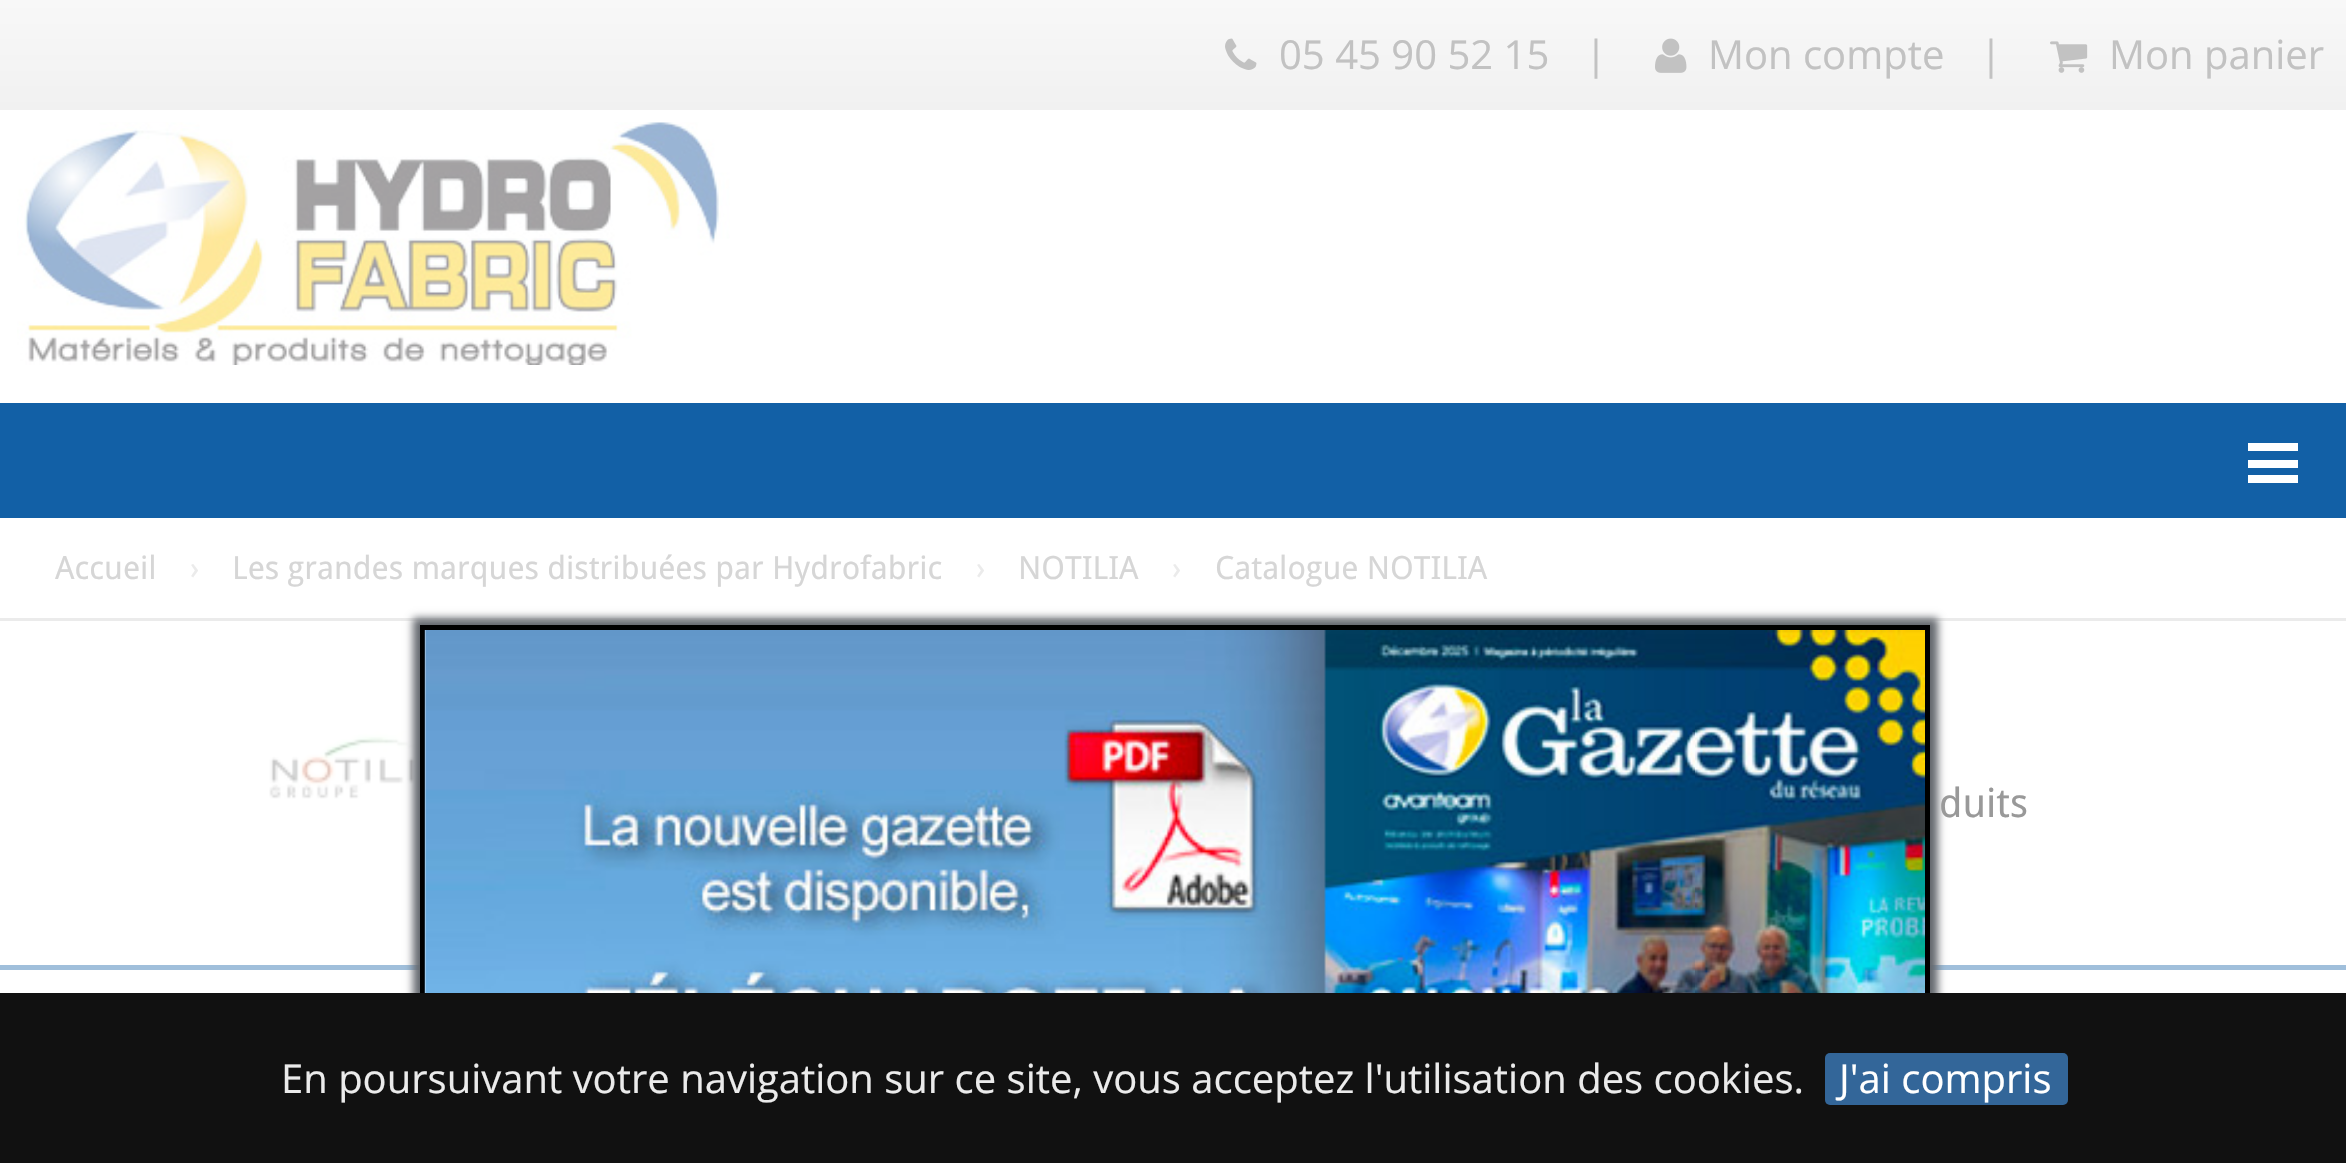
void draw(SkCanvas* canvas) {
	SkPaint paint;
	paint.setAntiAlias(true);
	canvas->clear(0xffffffff);
	{
		const SkColor colors[] = {0xfff8f8f8, 0xfff1f1f1};
		const float stops[] = {0, 1};
		const SkPoint ends[] = {{1174, 0}, {1174, 110}};
		paint.setShader(SkGradientShader::MakeLinear(ends, colors, stops, 2, SkTileMode::kClamp));
		paint.setAlpha(255);
	}
	canvas->drawRect(SkRect::MakeXYWH(0, 0, 2346, 110), paint);
	canvas->drawImageRect(SkImages::DeferredFromEncodedData(SkData::MakeFromFileName("img1.png")), SkRect::MakeXYWH(1225, 38, 32, 32), SkSamplingOptions());
	SkFont f1(fontMgr->matchFamilyStyle("Open Sans", SkFontStyle::Normal()), 40);
	f1.setSubpixel(true);
	paint.setShader(nullptr);
	paint.setColor(0xffc2c2c2);
	canvas->drawString("05 45 90 52 15", 1279, 69, f1, paint);
	canvas->drawString("|", 1585, 69, f1, paint);
	canvas->drawImageRect(SkImages::DeferredFromEncodedData(SkData::MakeFromFileName("img2.png")), SkRect::MakeXYWH(1655, 38, 32, 35), SkSamplingOptions());
	canvas->drawString("Mon compte", 1708, 69, f1, paint);
	canvas->drawString("|", 1980, 69, f1, paint);
	canvas->drawImageRect(SkImages::DeferredFromEncodedData(SkData::MakeFromFileName("img3.png")), SkRect::MakeXYWH(2050, 41, 38, 32), SkSamplingOptions());
	canvas->drawString("Mon panier", 2109, 69, f1, paint);
	canvas->drawImageRect(SkImages::DeferredFromEncodedData(SkData::MakeFromFileName("img4.png")), SkRect::MakeXYWH(17, 122, 713, 243), SkSamplingOptions());
	paint.setColor(0xff1260a6);
	canvas->drawRect(SkRect::MakeXYWH(0, 403, 2346, 115), paint);
	paint.setColor(0xffffffff);
	canvas->drawRect(SkRect::MakeXYWH(2248, 443, 50, 8), paint);
	canvas->drawRect(SkRect::MakeXYWH(2248, 460, 50, 8), paint);
	canvas->drawRect(SkRect::MakeXYWH(2248, 475, 50, 8), paint);
	paint.setColor(0xffebebeb);
	canvas->drawRect(SkRect::MakeXYWH(0, 618, 2346, 3), paint);
	SkFont f2(fontMgr->matchFamilyStyle("Droid Sans", SkFontStyle::Normal()), 32);
	f2.setSubpixel(true);
	paint.setColor(0xffd6d6d6);
	canvas->drawString("Accueil", 55, 579, f2, paint);
	paint.setColor(0xffebebeb);
	canvas->drawString("›", 190, 579, f2, paint);
	paint.setColor(0xffd6d6d6);
	canvas->drawString("Les grandes marques distribuées par Hydrofabric", 232, 579, f2, paint);
	paint.setColor(0xffebebeb);
	canvas->drawString("›", 976, 579, f2, paint);
	paint.setColor(0xffd6d6d6);
	canvas->drawString("NOTILIA", 1018, 579, f2, paint);
	paint.setColor(0xffebebeb);
	canvas->drawString("›", 1172, 579, f2, paint);
	paint.setColor(0xffd6d6d6);
	canvas->drawString("Catalogue NOTILIA", 1215, 579, f2, paint);
	canvas->drawImageRect(SkImages::DeferredFromEncodedData(SkData::MakeFromFileName("img6.png")), SkRect::MakeXYWH(269, 731, 151, 68), SkSamplingOptions());
	paint.setColor(0xffa0bfdb);
	canvas->drawRect(SkRect::MakeXYWH(0, 965, 2346, 5), paint);
	paint.setColor(0xff64686e);
	paint.setMaskFilter(SkMaskFilter::MakeBlur(kNormal_SkBlurStyle, 4));
	canvas->drawRect(SkRect::MakeXYWH(413, 618, 1525, 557), paint);
	paint.setMaskFilter(nullptr);
	paint.setColor(0xffffffff);
	canvas->drawRect(SkRect::MakeXYWH(425, 630, 1, 363), paint);
	paint.setStroke(true);
	paint.setStrokeWidth(5);
	paint.setColor(0xff000000);
	canvas->drawRect(SkRect::MakeXYWH(422.5, 627.5, 1505, 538), paint);
	canvas->drawImageRect(SkImages::DeferredFromEncodedData(SkData::MakeFromFileName("img5.png")), SkRect::MakeXYWH(424, 630, 1501, 363), SkSamplingOptions());
	SkFont f3(fontMgr->matchFamilyStyle("Droid Sans", SkFontStyle::Normal()), 40);
	f3.setSubpixel(true);
	paint.setStroke(false);
	paint.setColor(0xff999999);
	canvas->drawString("duits", 1939, 817, f3, paint);
	paint.setColor(0xff111111);
	canvas->drawRect(SkRect::MakeXYWH(0, 993, 2346, 170), paint);
	paint.setColor(0xffebebeb);
	canvas->drawString("En poursuivant votre navigation sur ce site, vous acceptez l'utilisation des cookies.", 281, 1093, f1, paint);
	paint.setColor(0xff336699);
	canvas->drawRoundRect(SkRect::MakeXYWH(1825, 1053, 243, 52), 5, 5, paint);
	paint.setColor(0xffffffff);
	canvas->drawString("J'ai compris", 1839, 1093, f1, paint);
}
